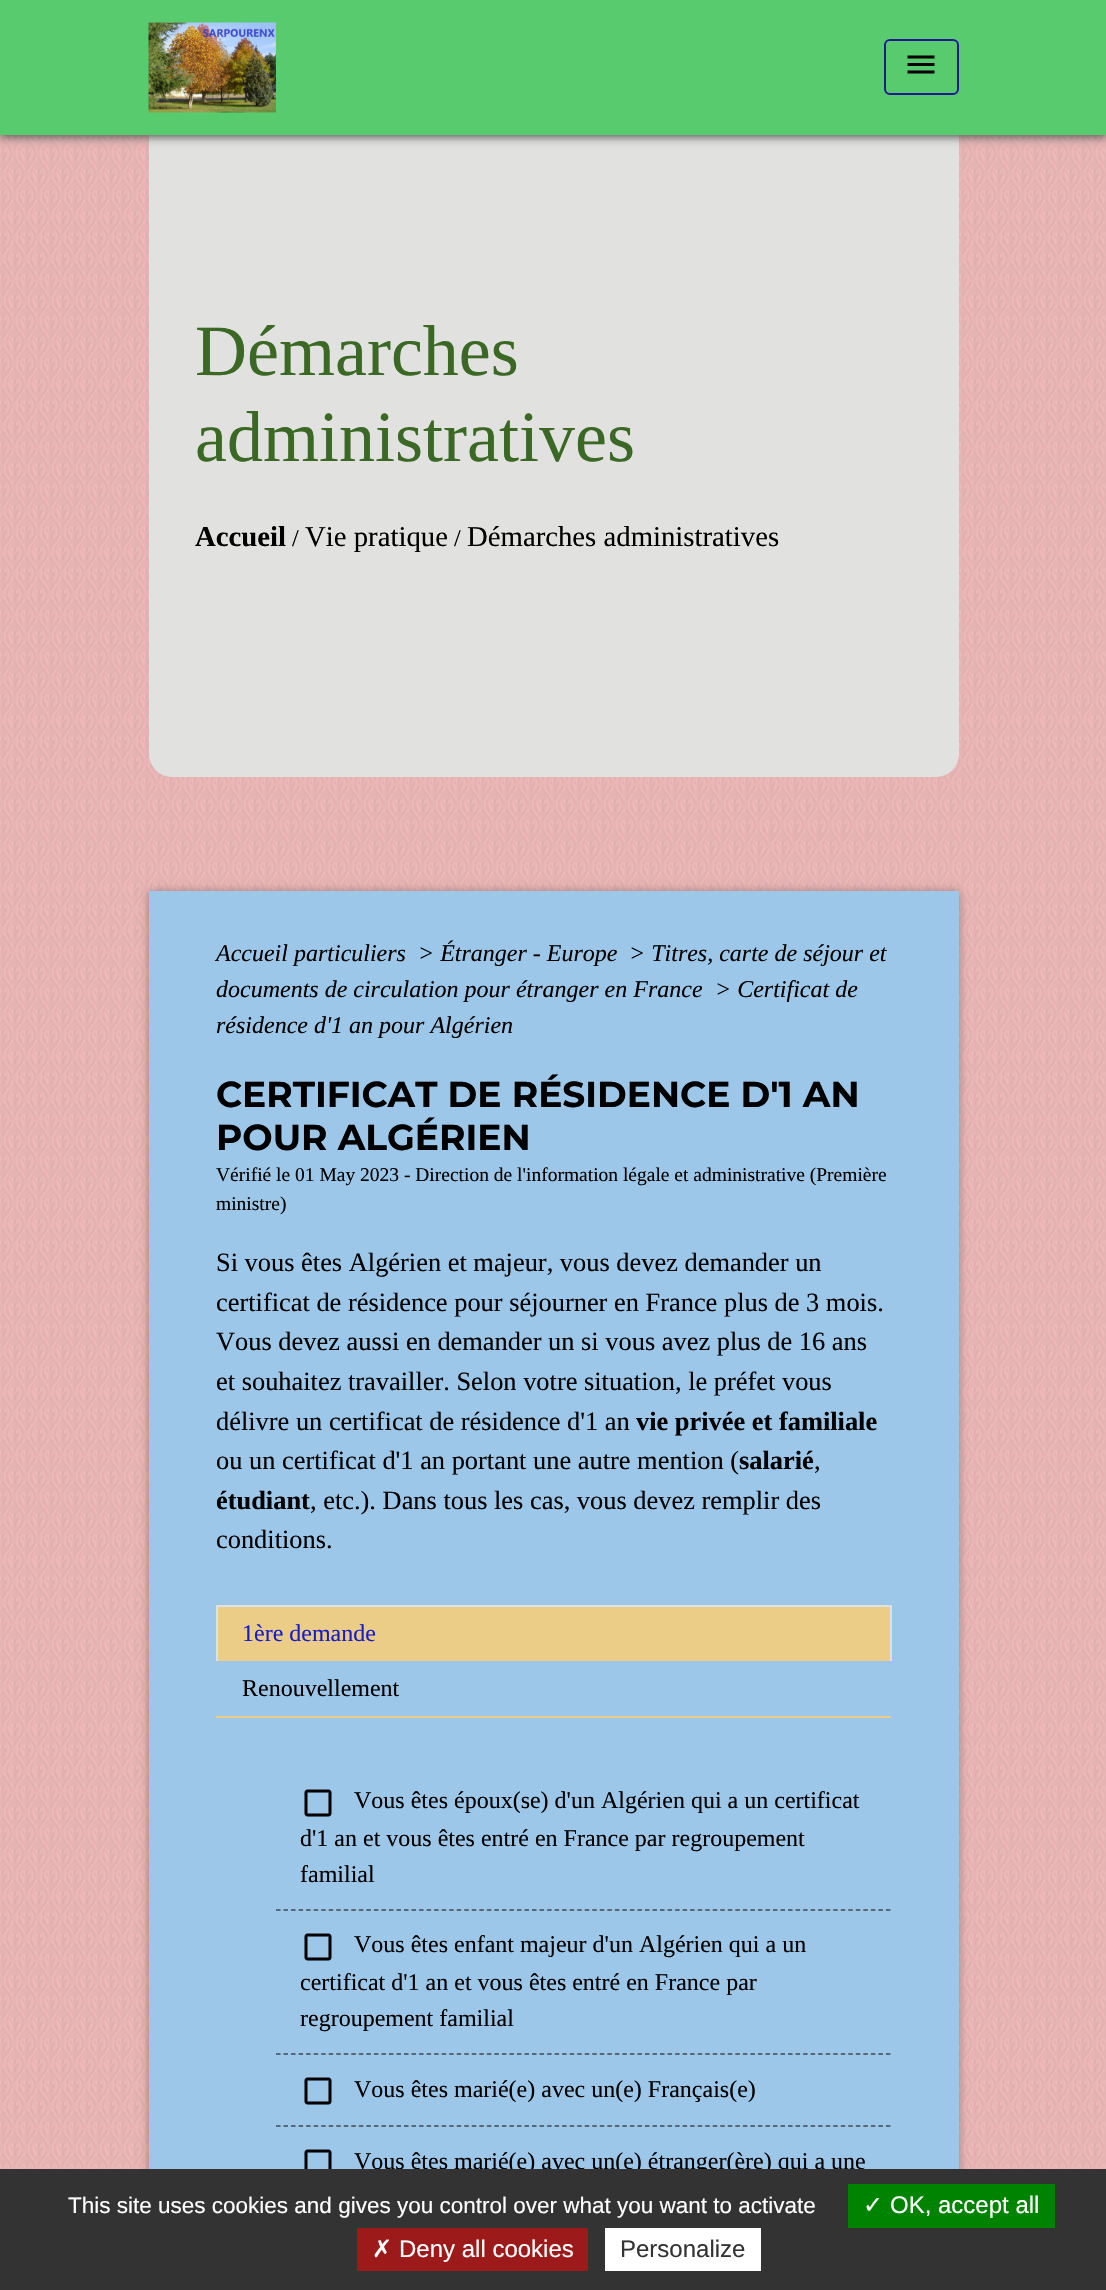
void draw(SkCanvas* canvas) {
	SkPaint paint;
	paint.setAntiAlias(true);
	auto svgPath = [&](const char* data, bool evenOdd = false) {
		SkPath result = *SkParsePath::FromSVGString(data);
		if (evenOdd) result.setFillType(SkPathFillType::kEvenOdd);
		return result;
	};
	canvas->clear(0xfff4bbbb);
	canvas->drawImageRect(SkImages::DeferredFromEncodedData(SkData::MakeFromFileName("img1.png")), SkRect::MakeXYWH(0, 135, 1106, 2034), SkSamplingOptions());
	paint.setColor(0xffe1e2e0);
	canvas->drawRoundRect(SkRect::MakeXYWH(149, 90, 810, 687), 23, 23, paint);
	paint.setColor(0xff535353);
	paint.setMaskFilter(SkMaskFilter::MakeBlur(kNormal_SkBlurStyle, 4.5));
	canvas->drawRect(SkRect::MakeXYWH(0, 2, 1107, 135), paint);
	paint.setMaskFilter(nullptr);
	paint.setColor(0xff57cb6d);
	canvas->drawRect(SkRect::MakeXYWH(0, 0, 1106, 135), paint);
	canvas->drawImageRect(SkImages::DeferredFromEncodedData(SkData::MakeFromFileName("img2.png")), SkRect::MakeXYWH(148, 22, 128, 91), SkSamplingOptions());
	paint.setStroke(true);
	paint.setStrokeWidth(2);
	paint.setColor(0xff231896);
	canvas->drawRoundRect(SkRect::MakeXYWH(885, 40, 73, 54), 5, 5, paint);
	canvas->drawImageRect(SkImages::DeferredFromEncodedData(SkData::MakeFromFileName("img3.png")), SkRect::MakeXYWH(907, 55, 28, 19), SkSamplingOptions());
	SkFont f1(fontMgr->matchFamilyStyle("Liberation Serif", SkFontStyle::Normal()), 72);
	f1.setSubpixel(true);
	paint.setStroke(false);
	paint.setColor(0xff3c6826);
	canvas->drawString("Démarches", 195, 375, f1, paint);
	canvas->drawString("administratives", 195, 461, f1, paint);
	SkFont f2(fontMgr->matchFamilyStyle("Liberation Serif", SkFontStyle::Bold()), 28.75);
	f2.setSubpixel(true);
	paint.setColor(0xff000000);
	canvas->drawString("Accueil", 195, 546, f2, paint);
	SkFont f3(fontMgr->matchFamilyStyle("Liberation Serif", SkFontStyle::Normal()), 24);
	f3.setSubpixel(true);
	canvas->drawString("/", 292, 546, f3, paint);
	SkFont f4(fontMgr->matchFamilyStyle("Liberation Serif", SkFontStyle::Normal()), 28.75);
	f4.setSubpixel(true);
	canvas->drawString("Vie pratique", 305, 546, f4, paint);
	canvas->drawString("/", 454, 546, f3, paint);
	canvas->drawString("Démarches administratives", 467, 546, f4, paint);
	paint.setColor(0x4d000000);
	paint.setMaskFilter(SkMaskFilter::MakeBlur(kNormal_SkBlurStyle, 4.5));
	canvas->drawRect(SkRect::MakeXYWH(149, 891, 810, 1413), paint);
	paint.setMaskFilter(nullptr);
	paint.setColor(0xff9cc7e8);
	canvas->drawRect(SkRect::MakeXYWH(149, 891, 810, 1278), paint);
	SkFont f5(fontMgr->matchFamilyStyle("Liberation Serif", SkFontStyle::Italic()), 24);
	f5.setSubpixel(true);
	paint.setColor(0xff000000);
	canvas->drawString("Accueil particuliers", 216, 961, f5, paint);
	canvas->drawString("> Étranger - Europe", 418, 961, f5, paint);
	canvas->drawString("> Titres, carte de séjour et", 629, 961, f5, paint);
	canvas->drawString("documents de circulation pour étranger en France", 216, 997, f5, paint);
	canvas->drawString("> Certificat de", 715, 997, f5, paint);
	canvas->drawString("résidence d'1 an pour Algérien", 216, 1033, f5, paint);
	SkFont f6(fontMgr->matchFamilyStyle("Montserrat", SkFontStyle::Bold()), 36);
	f6.setSubpixel(true);
	canvas->drawString("CERTIFICAT DE RÉSIDENCE D'1 AN", 216, 1107, f6, paint);
	canvas->drawString("POUR ALGÉRIEN", 216, 1150, f6, paint);
	SkFont f7(fontMgr->matchFamilyStyle("Liberation Serif", SkFontStyle::Normal()), 19.5);
	f7.setSubpixel(true);
	canvas->drawString("Vérifié le 01 May 2023 - Direction de l'information légale et administrative (Première", 216, 1181, f7, paint);
	canvas->drawString("ministre)", 216, 1210, f7, paint);
	SkFont f8(fontMgr->matchFamilyStyle("Liberation Serif", SkFontStyle::Normal()), 26.4);
	f8.setSubpixel(true);
	canvas->drawString("Si vous êtes Algérien et majeur, vous devez demander un", 216, 1271, f8, paint);
	canvas->drawString("certificat de résidence pour séjourner en France plus de 3 mois.", 216, 1311, f8, paint);
	canvas->drawString("Vous devez aussi en demander un si vous avez plus de 16 ans", 216, 1350, f8, paint);
	canvas->drawString("et souhaitez travailler. Selon votre situation, le préfet vous", 216, 1390, f8, paint);
	canvas->drawString("délivre un certificat de résidence d'1 an", 216, 1430, f8, paint);
	SkFont f9(fontMgr->matchFamilyStyle("Liberation Serif", SkFontStyle::Bold()), 26.4);
	f9.setSubpixel(true);
	canvas->drawString("vie privée et familiale", 636, 1430, f9, paint);
	canvas->drawString("ou un certificat d'1 an portant une autre mention (", 216, 1469, f8, paint);
	canvas->drawString("salarié", 739, 1469, f9, paint);
	canvas->drawString(",", 814, 1469, f8, paint);
	canvas->drawString("étudiant", 216, 1509, f9, paint);
	canvas->drawString(", etc.). Dans tous les cas, vous devez remplir des", 310, 1509, f8, paint);
	canvas->drawString("conditions.", 216, 1548, f8, paint);
	paint.setColor(0xffeccd88);
	canvas->drawRect(SkRect::MakeXYWH(216, 1716, 675, 2), paint);
	canvas->drawRect(SkRect::MakeXYWH(218, 1607, 672, 54), paint);
	paint.setColor(0xffdee2e6);
	canvas->drawRect(SkRect::MakeXYWH(216, 1605, 675, 2), paint);
	canvas->drawRect(SkRect::MakeXYWH(890, 1605, 2, 56), paint);
	canvas->drawRect(SkRect::MakeXYWH(216, 1605, 2, 56), paint);
	paint.setColor(0xff171cc9);
	canvas->drawString("1ère demande", 242, 1641, f3, paint);
	paint.setColor(0xff000000);
	canvas->drawString("Renouvellement", 242, 1696, f3, paint);
	canvas->drawImageRect(SkImages::DeferredFromEncodedData(SkData::MakeFromFileName("img4.png")), SkRect::MakeXYWH(304, 1789, 28, 28), SkSamplingOptions());
	canvas->drawString("Vous êtes époux(se) d'un Algérien qui a un certificat", 354, 1808, f3, paint);
	canvas->drawString("d'1 an et vous êtes entré en France par regroupement", 300, 1846, f3, paint);
	canvas->drawString("familial", 300, 1882, f3, paint);
	paint.setStroke(true);
	paint.setStrokeWidth(1.5);
	paint.setColor(0xff414856);
	paint.setPathEffect(SkDashPathEffect::Make({{4.5f, 3.03f}}, 0));
	canvas->drawPath(svgPath("M276 1910H891"), paint);
	paint.setPathEffect(nullptr);
	canvas->drawImageRect(SkImages::DeferredFromEncodedData(SkData::MakeFromFileName("img4.png")), SkRect::MakeXYWH(304, 1933, 28, 28), SkSamplingOptions());
	paint.setStroke(false);
	paint.setColor(0xff000000);
	canvas->drawString("Vous êtes enfant majeur d'un Algérien qui a un", 354, 1952, f3, paint);
	canvas->drawString("certificat d'1 an et vous êtes entré en France par", 300, 1990, f3, paint);
	canvas->drawString("regroupement familial", 300, 2026, f3, paint);
	paint.setStroke(true);
	paint.setColor(0xff414856);
	paint.setPathEffect(SkDashPathEffect::Make({{4.5f, 3.03f}}, 0));
	canvas->drawPath(svgPath("M276 2054H891"), paint);
	paint.setPathEffect(nullptr);
	canvas->drawImageRect(SkImages::DeferredFromEncodedData(SkData::MakeFromFileName("img4.png")), SkRect::MakeXYWH(304, 2077, 28, 28), SkSamplingOptions());
	paint.setStroke(false);
	paint.setColor(0xff000000);
	canvas->drawString("Vous êtes marié(e) avec un(e) Français(e)", 354, 2097, f3, paint);
	paint.setStroke(true);
	paint.setColor(0xff414856);
	paint.setPathEffect(SkDashPathEffect::Make({{4.5f, 3.03f}}, 0));
	canvas->drawPath(svgPath("M276 2126H891"), paint);
	paint.setPathEffect(nullptr);
	canvas->drawImageRect(SkImages::DeferredFromEncodedData(SkData::MakeFromFileName("img5.png")), SkRect::MakeXYWH(304, 2149, 28, 20), SkSamplingOptions());
	paint.setStroke(false);
	paint.setColor(0xff000000);
	canvas->drawString("Vous êtes marié(e) avec un(e) étranger(ère) qui a une", 354, 2169, f3, paint);
	paint.setColor(0xff333333);
	canvas->drawRect(SkRect::MakeXYWH(0, 2169, 1106, 121), paint);
	SkFont f10(fontMgr->matchFamilyStyle("Liberation Sans", SkFontStyle::Normal()), 22.5);
	f10.setSubpixel(true);
	paint.setColor(0xffffffff);
	canvas->drawString("This site uses cookies and gives you control over what you want to activate", 68, 2213, f10, paint);
	paint.setColor(0xff008300);
	canvas->drawRect(SkRect::MakeXYWH(848, 2184, 207, 44), paint);
	SkFont f11(fontMgr->matchFamilyStyle("DejaVu Sans", SkFontStyle::Normal()), 24);
	f11.setSubpixel(true);
	paint.setColor(0xffffffff);
	canvas->drawString("✓", 863, 2213, f11, paint);
	SkFont f12(fontMgr->matchFamilyStyle("Liberation Sans", SkFontStyle::Normal()), 24);
	f12.setSubpixel(true);
	canvas->drawString("OK, accept all", 890, 2213, f12, paint);
	paint.setColor(0xff9c1a1a);
	canvas->drawRect(SkRect::MakeXYWH(357, 2228, 231, 43), paint);
	paint.setColor(0xffffffff);
	canvas->drawString("✗", 372, 2257, f11, paint);
	canvas->drawString("Deny all cookies", 399, 2257, f12, paint);
	canvas->drawRect(SkRect::MakeXYWH(605, 2228, 156, 43), paint);
	paint.setColor(0xff333333);
	canvas->drawString("Personalize", 620, 2257, f12, paint);
}
